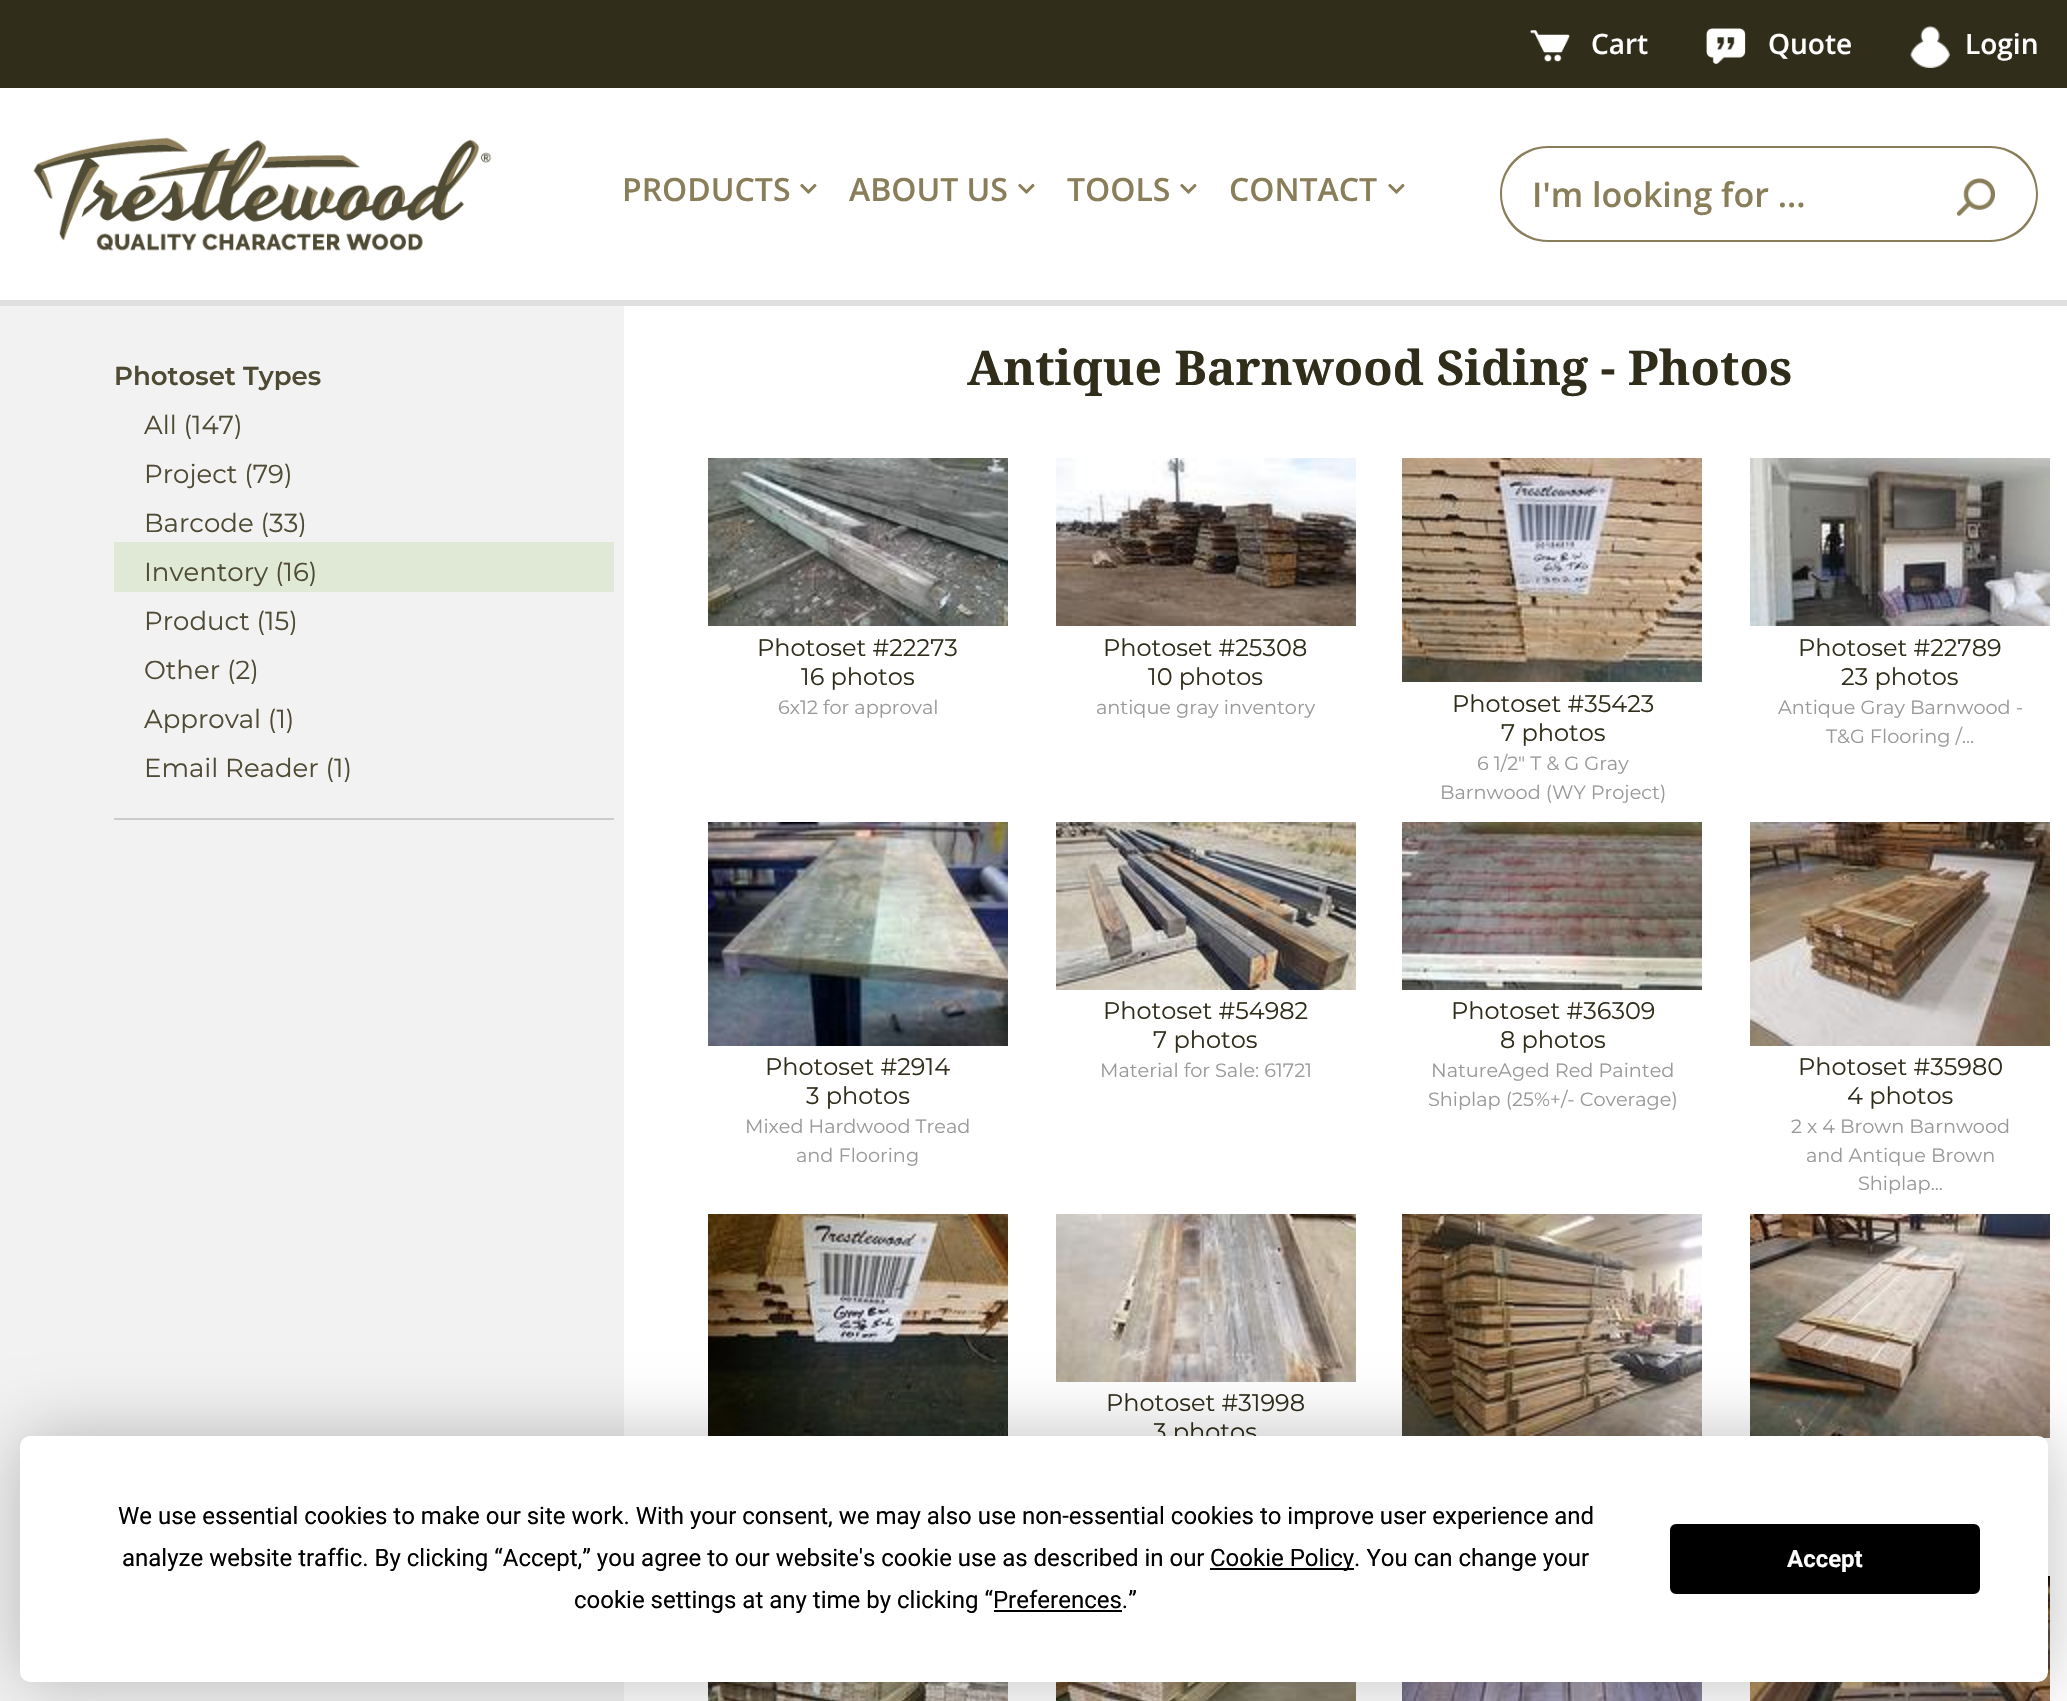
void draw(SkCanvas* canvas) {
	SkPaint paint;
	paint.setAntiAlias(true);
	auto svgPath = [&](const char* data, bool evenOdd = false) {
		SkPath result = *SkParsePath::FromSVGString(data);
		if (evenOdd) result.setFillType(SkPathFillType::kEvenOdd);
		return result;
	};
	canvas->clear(0xffffffff);
	paint.setColor(0xff302d1b);
	canvas->drawRect(SkRect::MakeXYWH(0, 0, 2067, 88), paint);
	canvas->drawImageRect(SkImages::DeferredFromEncodedData(SkData::MakeFromFileName("img1.png")), SkRect::MakeXYWH(1530, 30, 40, 32), SkSamplingOptions());
	SkFont f1(fontMgr->matchFamilyStyle("Open Sans", SkFontStyle(600, SkFontStyle::kNormal_Width, SkFontStyle::kUpright_Slant)), 28);
	f1.setSubpixel(true);
	paint.setColor(0xffffffff);
	canvas->drawString("Cart", 1591, 54, f1, paint);
	canvas->drawImageRect(SkImages::DeferredFromEncodedData(SkData::MakeFromFileName("img2.png")), SkRect::MakeXYWH(1706, 28, 40, 36), SkSamplingOptions());
	canvas->drawString("Quote", 1768, 54, f1, paint);
	canvas->drawImageRect(SkImages::DeferredFromEncodedData(SkData::MakeFromFileName("img3.png")), SkRect::MakeXYWH(1910, 26, 40, 42), SkSamplingOptions());
	canvas->drawString("Login", 1965, 54, f1, paint);
	paint.setColor(0xffe0e0e0);
	canvas->drawRect(SkRect::MakeXYWH(0, 300, 2067, 6), paint);
	canvas->drawImageRect(SkImages::DeferredFromEncodedData(SkData::MakeFromFileName("img4.png")), SkRect::MakeXYWH(33, 137, 459, 114), SkSamplingOptions());
	SkFont f2(fontMgr->matchFamilyStyle("Open Sans", SkFontStyle(600, SkFontStyle::kNormal_Width, SkFontStyle::kUpright_Slant)), 32);
	f2.setSubpixel(true);
	paint.setColor(0xff897e59);
	canvas->drawString("PRODUCTS", 622, 201, f2, paint);
	canvas->drawImageRect(SkImages::DeferredFromEncodedData(SkData::MakeFromFileName("img5.png")), SkRect::MakeXYWH(800, 183, 17, 11), SkSamplingOptions());
	canvas->drawString("ABOUT US", 849, 201, f2, paint);
	canvas->drawImageRect(SkImages::DeferredFromEncodedData(SkData::MakeFromFileName("img5.png")), SkRect::MakeXYWH(1018, 183, 17, 11), SkSamplingOptions());
	canvas->drawString("TOOLS", 1067, 201, f2, paint);
	canvas->drawImageRect(SkImages::DeferredFromEncodedData(SkData::MakeFromFileName("img5.png")), SkRect::MakeXYWH(1180, 183, 17, 11), SkSamplingOptions());
	canvas->drawString("CONTACT", 1229, 201, f2, paint);
	canvas->drawImageRect(SkImages::DeferredFromEncodedData(SkData::MakeFromFileName("img5.png")), SkRect::MakeXYWH(1388, 183, 17, 11), SkSamplingOptions());
	canvas->drawPath(svgPath("M1548 146H1928V242H1548C1521 242 1500 221 1500 194C1500 167 1521 146 1548 146ZM1548 148H1928V240H1548C1523 240 1502 219 1502 194C1502 169 1523 148 1548 148Z", true), paint);
	SkFont f3(fontMgr->matchFamilyStyle("Open Sans", SkFontStyle(600, SkFontStyle::kNormal_Width, SkFontStyle::kUpright_Slant)), 34);
	f3.setSubpixel(true);
	canvas->drawString("I'm looking for ...", 1532, 207, f3, paint);
	paint.setColor(0xffffffff);
	canvas->drawPath(svgPath("M1926 146H1990C2016.5 146 2038 167.5 2038 194C2038 220.5 2016.5 242 1990 242H1926Z"), paint);
	paint.setColor(0xff897e59);
	canvas->drawPath(svgPath("M1926 146H1990C2017 146 2038 167 2038 194C2038 221 2017 242 1990 242H1926ZM1926 148H1990C2015 148 2036 169 2036 194C2036 219 2015 240 1990 240H1926Z", true), paint);
	canvas->drawImageRect(SkImages::DeferredFromEncodedData(SkData::MakeFromFileName("img6.png")), SkRect::MakeXYWH(1956, 178, 40, 38), SkSamplingOptions());
	paint.setColor(0xfff2f2f2);
	canvas->drawRect(SkRect::MakeXYWH(0, 306, 624, 1395), paint);
	paint.setColor(0xffcdcccc);
	canvas->drawRect(SkRect::MakeXYWH(114, 818, 500, 2), paint);
	SkFont f4(fontMgr->matchFamilyStyle("Montserrat", SkFontStyle(600, SkFontStyle::kNormal_Width, SkFontStyle::kUpright_Slant)), 26);
	f4.setSubpixel(true);
	paint.setColor(0xff4e4a33);
	canvas->drawString("Photoset Types", 114, 385, f4, paint);
	SkFont f5(fontMgr->matchFamilyStyle("Montserrat", SkFontStyle::Normal()), 26);
	f5.setSubpixel(true);
	canvas->drawString("All (147)", 144, 434, f5, paint);
	canvas->drawString("Project (79)", 144, 483, f5, paint);
	canvas->drawString("Barcode (33)", 144, 532, f5, paint);
	paint.setColor(0xffe0e8d6);
	canvas->drawRect(SkRect::MakeXYWH(114, 542, 500, 50), paint);
	paint.setColor(0xff4e4a33);
	canvas->drawString("Inventory (16)", 144, 581, f5, paint);
	canvas->drawString("Product (15)", 144, 630, f5, paint);
	canvas->drawString("Other (2)", 144, 679, f5, paint);
	canvas->drawString("Approval (1)", 144, 728, f5, paint);
	canvas->drawString("Email Reader (1)", 144, 777, f5, paint);
	SkFont f6(fontMgr->matchFamilyStyle("Noto Serif", SkFontStyle::Bold()), 48);
	f6.setSubpixel(true);
	paint.setColor(0xff302d1b);
	canvas->drawString("Antique Barnwood Siding - Photos", 967, 385, f6, paint);
	canvas->drawImageRect(SkImages::DeferredFromEncodedData(SkData::MakeFromFileName("img7.png")), SkRect::MakeXYWH(708, 458, 300, 168), SkSamplingOptions());
	SkFont f7(fontMgr->matchFamilyStyle("Montserrat", SkFontStyle::Normal()), 24);
	f7.setSubpixel(true);
	canvas->drawString("Photoset #22273", 757, 656, f7, paint);
	canvas->drawString("16 photos", 801, 685, f7, paint);
	SkFont f8(fontMgr->matchFamilyStyle("Montserrat", SkFontStyle::Normal()), 19.25);
	f8.setSubpixel(true);
	paint.setColor(0xff999999);
	canvas->drawString("6x12 for approval", 778, 714, f8, paint);
	canvas->drawImageRect(SkImages::DeferredFromEncodedData(SkData::MakeFromFileName("img8.png")), SkRect::MakeXYWH(1056, 458, 300, 168), SkSamplingOptions());
	paint.setColor(0xff302d1b);
	canvas->drawString("Photoset #25308", 1103, 656, f7, paint);
	canvas->drawString("10 photos", 1148, 685, f7, paint);
	paint.setColor(0xff999999);
	canvas->drawString("antique gray inventory", 1096, 714, f8, paint);
	canvas->drawImageRect(SkImages::DeferredFromEncodedData(SkData::MakeFromFileName("img9.png")), SkRect::MakeXYWH(1402, 458, 300, 224), SkSamplingOptions());
	paint.setColor(0xff302d1b);
	canvas->drawString("Photoset #35423", 1452, 712, f7, paint);
	canvas->drawString("7 photos", 1501, 741, f7, paint);
	paint.setColor(0xff999999);
	canvas->drawString("6 1/2\" T & G Gray", 1477, 770, f8, paint);
	canvas->drawString("Barnwood (WY Project)", 1440, 799, f8, paint);
	canvas->drawImageRect(SkImages::DeferredFromEncodedData(SkData::MakeFromFileName("img10.png")), SkRect::MakeXYWH(1750, 458, 300, 168), SkSamplingOptions());
	paint.setColor(0xff302d1b);
	canvas->drawString("Photoset #22789", 1798, 656, f7, paint);
	canvas->drawString("23 photos", 1841, 685, f7, paint);
	paint.setColor(0xff999999);
	canvas->drawString("Antique Gray Barnwood -", 1778, 714, f8, paint);
	canvas->drawString("T&G Flooring /...", 1826, 743, f8, paint);
	canvas->drawImageRect(SkImages::DeferredFromEncodedData(SkData::MakeFromFileName("img11.png")), SkRect::MakeXYWH(708, 822, 300, 224), SkSamplingOptions());
	paint.setColor(0xff302d1b);
	canvas->drawString("Photoset #2914", 765, 1075, f7, paint);
	canvas->drawString("3 photos", 806, 1104, f7, paint);
	paint.setColor(0xff999999);
	canvas->drawString("Mixed Hardwood Tread", 745, 1133, f8, paint);
	canvas->drawString("and Flooring", 796, 1162, f8, paint);
	canvas->drawImageRect(SkImages::DeferredFromEncodedData(SkData::MakeFromFileName("img12.png")), SkRect::MakeXYWH(1056, 822, 300, 168), SkSamplingOptions());
	paint.setColor(0xff302d1b);
	canvas->drawString("Photoset #54982", 1103, 1019, f7, paint);
	canvas->drawString("7 photos", 1153, 1048, f7, paint);
	paint.setColor(0xff999999);
	canvas->drawString("Material for Sale: 61721", 1100, 1077, f8, paint);
	canvas->drawImageRect(SkImages::DeferredFromEncodedData(SkData::MakeFromFileName("img13.png")), SkRect::MakeXYWH(1402, 822, 300, 168), SkSamplingOptions());
	paint.setColor(0xff302d1b);
	canvas->drawString("Photoset #36309", 1451, 1019, f7, paint);
	canvas->drawString("8 photos", 1500, 1048, f7, paint);
	paint.setColor(0xff999999);
	canvas->drawString("NatureAged Red Painted", 1431, 1077, f8, paint);
	canvas->drawString("Shiplap (25%+/- Coverage)", 1428, 1106, f8, paint);
	canvas->drawImageRect(SkImages::DeferredFromEncodedData(SkData::MakeFromFileName("img14.png")), SkRect::MakeXYWH(1750, 822, 300, 224), SkSamplingOptions());
	paint.setColor(0xff302d1b);
	canvas->drawString("Photoset #35980", 1798, 1075, f7, paint);
	canvas->drawString("4 photos", 1847, 1104, f7, paint);
	paint.setColor(0xff999999);
	canvas->drawString("2 x 4 Brown Barnwood", 1791, 1133, f8, paint);
	canvas->drawString("and Antique Brown", 1806, 1162, f8, paint);
	canvas->drawString("Shiplap...", 1858, 1190, f8, paint);
	canvas->drawImageRect(SkImages::DeferredFromEncodedData(SkData::MakeFromFileName("img15.png")), SkRect::MakeXYWH(708, 1214, 300, 222), SkSamplingOptions());
	canvas->drawImageRect(SkImages::DeferredFromEncodedData(SkData::MakeFromFileName("img16.png")), SkRect::MakeXYWH(1056, 1214, 300, 168), SkSamplingOptions());
	paint.setColor(0xff302d1b);
	canvas->drawString("Photoset #31998", 1106, 1411, f7, paint);
	canvas->drawString("3 photos", 1153, 1440, f7, paint);
	canvas->drawImageRect(SkImages::DeferredFromEncodedData(SkData::MakeFromFileName("img17.png")), SkRect::MakeXYWH(1402, 1214, 300, 222), SkSamplingOptions());
	canvas->drawImageRect(SkImages::DeferredFromEncodedData(SkData::MakeFromFileName("img18.png")), SkRect::MakeXYWH(1750, 1214, 300, 224), SkSamplingOptions());
	canvas->drawImageRect(SkImages::DeferredFromEncodedData(SkData::MakeFromFileName("img19.png")), SkRect::MakeXYWH(708, 1682, 300, 19), SkSamplingOptions());
	canvas->drawImageRect(SkImages::DeferredFromEncodedData(SkData::MakeFromFileName("img20.png")), SkRect::MakeXYWH(1056, 1682, 300, 19), SkSamplingOptions());
	canvas->drawImageRect(SkImages::DeferredFromEncodedData(SkData::MakeFromFileName("img21.png")), SkRect::MakeXYWH(1402, 1682, 300, 19), SkSamplingOptions());
	canvas->drawImageRect(SkImages::DeferredFromEncodedData(SkData::MakeFromFileName("img22.png")), SkRect::MakeXYWH(1750, 1576, 300, 125), SkSamplingOptions());
	paint.setColor(0x40000000);
	paint.setMaskFilter(SkMaskFilter::MakeBlur(kNormal_SkBlurStyle, 35));
	canvas->drawRoundRect(SkRect::MakeXYWH(20, 1436, 2028, 246), 10, 10, paint);
	paint.setMaskFilter(nullptr);
	paint.setColor(0xffffffff);
	canvas->drawRoundRect(SkRect::MakeXYWH(20, 1436, 2028, 246), 10, 10, paint);
	SkFont f9(fontMgr->matchFamilyStyle("Roboto", SkFontStyle::Normal()), 24);
	f9.setSubpixel(true);
	paint.setColor(0xff000000);
	canvas->drawString("We use essential cookies to make our site work. With your consent, we may also use non-essential cookies to improve user experience and", 118, 1524, f9, paint);
	canvas->drawString("analyze website traffic. By clicking “Accept,” you agree to our website's cookie use as described in our", 122, 1566, f9, paint);
	canvas->drawRect(SkRect::MakeXYWH(1210, 1568, 144, 2), paint);
	canvas->drawString("Cookie Policy. You can change your", 1210, 1566, f9, paint);
	canvas->drawString("cookie settings at any time by clicking “Preferences.”", 574, 1608, f9, paint);
	canvas->drawRect(SkRect::MakeXYWH(994, 1610, 128, 2), paint);
	canvas->drawRoundRect(SkRect::MakeXYWH(1671, 1525, 308, 68), 5, 5, paint);
	paint.setStroke(true);
	paint.setStrokeWidth(2);
	canvas->drawRoundRect(SkRect::MakeXYWH(1671, 1525, 308, 68), 5, 5, paint);
	SkFont f10(fontMgr->matchFamilyStyle("Roboto", SkFontStyle::Bold()), 24);
	f10.setSubpixel(true);
	paint.setStroke(false);
	paint.setColor(0xffffffff);
	canvas->drawString("Accept", 1787, 1567, f10, paint);
}
